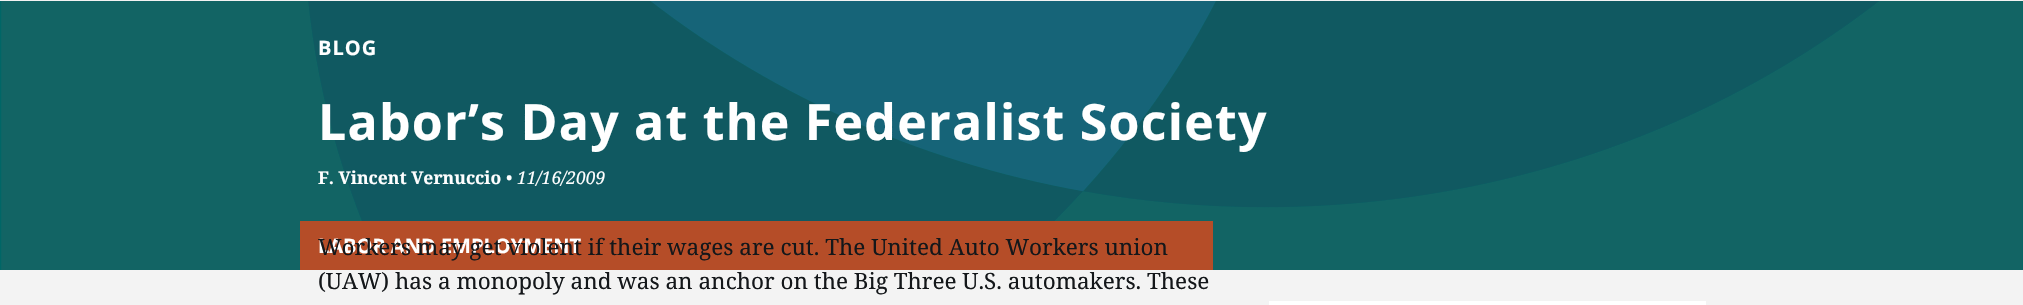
void draw(SkCanvas* canvas) {
	SkPaint paint;
	paint.setAntiAlias(true);
	auto spacedText = [&](const char* s, float x, float y, const SkFont& font, const SkPaint& ink, float letter, float word) {
		std::vector<SkGlyphID> glyphs(font.countText(s, strlen(s), SkTextEncoding::kUTF8));
		std::vector<float> xs(glyphs.size());
		font.textToGlyphs(s, strlen(s), SkTextEncoding::kUTF8, glyphs);
		font.getXPos(glyphs, xs, x);
		float extra = 0;
		for (size_t i = 0; i < glyphs.size(); i++) {
			xs[i] += extra;
			extra += letter + word * (glyphs[i] == font.unicharToGlyph(' '));
		}
		canvas->drawTextBlob(SkTextBlob::MakeFromPosHGlyphs(glyphs, xs, y, font), 0, 0, ink);
	};
	canvas->clear(0xfff3f3f3);
	paint.setColor(0xff006666);
	canvas->drawRect(SkRect::MakeXYWH(0, 1, 2023, 269), paint);
	canvas->drawImageRect(SkImages::DeferredFromEncodedData(SkData::MakeFromFileName("img1.png")), SkRect::MakeXYWH(1, 1, 2022, 269), SkSamplingOptions());
	SkFont f1(fontMgr->matchFamilyStyle("Open Sans", SkFontStyle::Bold()), 20);
	f1.setSubpixel(true);
	paint.setColor(0xffffffff);
	spacedText("BLOG", 318, 55, f1, paint, 1, 0);
	SkFont f2(fontMgr->matchFamilyStyle("Noto Serif", SkFontStyle::Bold()), 17.5);
	f2.setSubpixel(true);
	canvas->drawString("F. Vincent Vernuccio", 318, 184, f2, paint);
	SkFont f3(fontMgr->matchFamilyStyle("Noto Serif", SkFontStyle::Normal()), 17.5);
	f3.setSubpixel(true);
	canvas->drawString("•", 506, 184, f3, paint);
	SkFont f4(fontMgr->matchFamilyStyle("Noto Serif", SkFontStyle::Italic()), 17.5);
	f4.setSubpixel(true);
	canvas->drawString("11/16/2009", 517, 184, f4, paint);
	paint.setColor(0xffb54d28);
	canvas->drawRect(SkRect::MakeXYWH(300, 221, 913, 49), paint);
	paint.setColor(0xffffffff);
	canvas->drawString("LABOR AND EMPLOYMENT", 318, 253, f1, paint);
	SkFont f5(fontMgr->matchFamilyStyle("Open Sans", SkFontStyle::Bold()), 50);
	f5.setSubpixel(true);
	spacedText("Labor’s Day at the Federalist Society", 318, 140, f5, paint, 1.25, 0);
	SkFont f6(fontMgr->matchFamilyStyle("Noto Serif", SkFontStyle::Normal()), 22.5);
	f6.setSubpixel(true);
	paint.setColor(0xff14171a);
	canvas->drawString("Workers may get violent if their wages are cut. The United Auto Workers union", 318, 255, f6, paint);
	canvas->drawString("(UAW) has a monopoly and was an anchor on the Big Three U.S. automakers. These", 318, 289, f6, paint);
	paint.setColor(0xffffffff);
	canvas->drawRect(SkRect::MakeXYWH(1269, 301, 437, 4), paint);
}
